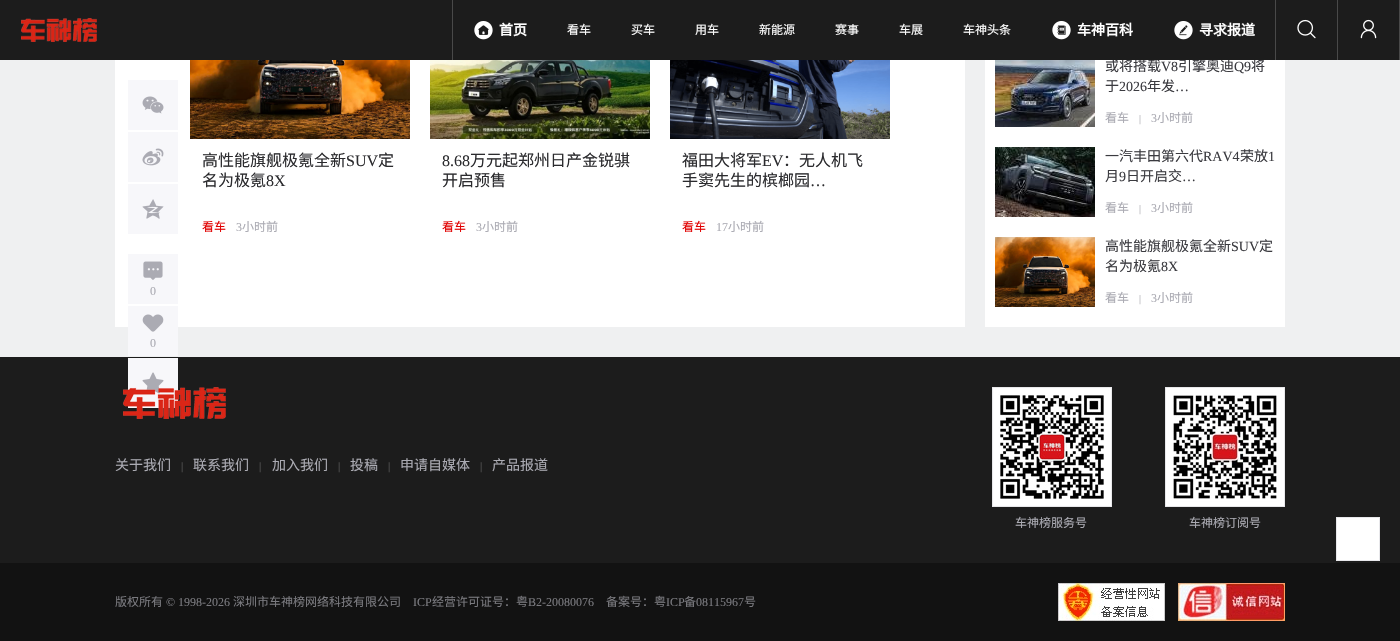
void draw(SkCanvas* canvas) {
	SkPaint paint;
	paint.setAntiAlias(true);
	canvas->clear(0xffeff0f1);
	paint.setColor(0xffffffff);
	canvas->drawRect(SkRect::MakeXYWH(985, 60, 300, 267), paint);
	SkFont f1(fontMgr->matchFamilyStyle("Noto Sans CJK SC", SkFontStyle::Normal()), 14);
	f1.setSubpixel(true);
	paint.setColor(0xff3b3b40);
	canvas->drawString("或将搭载", 1105, 71, f1, paint);
	canvas->drawString("引擎奥迪", 1178, 71, f1, paint);
	canvas->drawString("将", 1251, 71, f1, paint);
	paint.setColor(0xff1c1c1c);
	canvas->drawRect(SkRect::MakeXYWH(0, 0, 1399, 60), paint);
	canvas->drawImageRect(SkImages::DeferredFromEncodedData(SkData::MakeFromFileName("img1.png")), SkRect::MakeXYWH(21, 18, 76, 24), SkSamplingOptions());
	paint.setColor(0xff494949);
	canvas->drawRect(SkRect::MakeXYWH(452, 0, 1, 60), paint);
	canvas->drawImageRect(SkImages::DeferredFromEncodedData(SkData::MakeFromFileName("img2.png")), SkRect::MakeXYWH(474, 21, 19, 19), SkSamplingOptions());
	SkFont f2(fontMgr->matchFamilyStyle("Noto Sans CJK SC", SkFontStyle::Bold()), 14);
	f2.setSubpixel(true);
	paint.setColor(0xffffffff);
	canvas->drawString("首页", 499, 35, f2, paint);
	SkFont f3(fontMgr->matchFamilyStyle("Noto Sans CJK SC", SkFontStyle::Normal()), 12);
	f3.setSubpixel(true);
	canvas->drawString("看车", 567, 34, f3, paint);
	canvas->drawString("买车", 631, 34, f3, paint);
	canvas->drawString("用车", 695, 34, f3, paint);
	canvas->drawString("新能源", 759, 34, f3, paint);
	canvas->drawString("赛事", 835, 34, f3, paint);
	canvas->drawString("车展", 899, 34, f3, paint);
	canvas->drawString("车神头条", 963, 34, f3, paint);
	canvas->drawImageRect(SkImages::DeferredFromEncodedData(SkData::MakeFromFileName("img3.png")), SkRect::MakeXYWH(1052, 21, 19, 19), SkSamplingOptions());
	canvas->drawString("车神百科", 1077, 35, f2, paint);
	canvas->drawImageRect(SkImages::DeferredFromEncodedData(SkData::MakeFromFileName("img4.png")), SkRect::MakeXYWH(1174, 21, 19, 19), SkSamplingOptions());
	canvas->drawString("寻求报道", 1199, 35, f2, paint);
	paint.setColor(0xff494949);
	canvas->drawRect(SkRect::MakeXYWH(1275, 0, 1, 60), paint);
	canvas->drawImageRect(SkImages::DeferredFromEncodedData(SkData::MakeFromFileName("img5.png")), SkRect::MakeXYWH(1297, 19, 19, 20), SkSamplingOptions());
	canvas->drawRect(SkRect::MakeXYWH(1399, 0, 1, 60), paint);
	canvas->drawRect(SkRect::MakeXYWH(1337, 0, 1, 60), paint);
	canvas->drawImageRect(SkImages::DeferredFromEncodedData(SkData::MakeFromFileName("img6.png")), SkRect::MakeXYWH(1360, 19, 17, 20), SkSamplingOptions());
	paint.setColor(0xffffffff);
	canvas->drawRect(SkRect::MakeXYWH(115, 60, 850, 267), paint);
	canvas->drawImageRect(SkImages::DeferredFromEncodedData(SkData::MakeFromFileName("img7.png")), SkRect::MakeXYWH(190, 60, 220, 79), SkSamplingOptions());
	SkFont f4(fontMgr->matchFamilyStyle("Noto Sans CJK SC", SkFontStyle::Normal()), 16);
	f4.setSubpixel(true);
	paint.setColor(0xff2b2b2e);
	canvas->drawString("高性能旗舰极氪全新", 202, 166, f4, paint);
	SkFont f5(fontMgr->matchFamilyStyle("Liberation Serif", SkFontStyle::Normal()), 16);
	f5.setSubpixel(true);
	canvas->drawString("SUV", 346, 166, f5, paint);
	canvas->drawString("定", 378, 166, f4, paint);
	canvas->drawString("名为极氪", 202, 186, f4, paint);
	canvas->drawString("8X", 266, 186, f5, paint);
	paint.setColor(0xffe10000);
	canvas->drawString("看车", 202, 231, f3, paint);
	SkFont f6(fontMgr->matchFamilyStyle("Liberation Serif", SkFontStyle::Normal()), 12);
	f6.setSubpixel(true);
	paint.setColor(0xffababb3);
	canvas->drawString("3", 236, 231, f6, paint);
	canvas->drawString("小时前", 242, 231, f3, paint);
	canvas->drawImageRect(SkImages::DeferredFromEncodedData(SkData::MakeFromFileName("img8.png")), SkRect::MakeXYWH(430, 60, 220, 79), SkSamplingOptions());
	paint.setColor(0xff2b2b2e);
	canvas->drawString("8.68", 442, 166, f5, paint);
	canvas->drawString("万元起郑州日产金锐骐", 470, 166, f4, paint);
	canvas->drawString("开启预售", 442, 186, f4, paint);
	paint.setColor(0xffe10000);
	canvas->drawString("看车", 442, 231, f3, paint);
	paint.setColor(0xffababb3);
	canvas->drawString("3", 476, 231, f6, paint);
	canvas->drawString("小时前", 482, 231, f3, paint);
	canvas->drawImageRect(SkImages::DeferredFromEncodedData(SkData::MakeFromFileName("img9.png")), SkRect::MakeXYWH(670, 60, 220, 79), SkSamplingOptions());
	paint.setColor(0xff2b2b2e);
	canvas->drawString("福田大将军", 682, 166, f4, paint);
	canvas->drawString("EV", 762, 166, f5, paint);
	canvas->drawString("：无人机飞", 783, 166, f4, paint);
	canvas->drawString("手窦先生的槟榔园", 682, 186, f4, paint);
	canvas->drawString("…", 810, 186, f5, paint);
	paint.setColor(0xffe10000);
	canvas->drawString("看车", 682, 231, f3, paint);
	paint.setColor(0xffababb3);
	canvas->drawString("17", 716, 231, f6, paint);
	canvas->drawString("小时前", 728, 231, f3, paint);
	paint.setColor(0xfff7f7fa);
	canvas->drawRect(SkRect::MakeXYWH(128, 80, 50, 50), paint);
	canvas->drawImageRect(SkImages::DeferredFromEncodedData(SkData::MakeFromFileName("img10.png")), SkRect::MakeXYWH(142, 96, 22, 18), SkSamplingOptions());
	canvas->drawRect(SkRect::MakeXYWH(128, 132, 50, 50), paint);
	canvas->drawImageRect(SkImages::DeferredFromEncodedData(SkData::MakeFromFileName("img11.png")), SkRect::MakeXYWH(142, 148, 22, 18), SkSamplingOptions());
	canvas->drawRect(SkRect::MakeXYWH(128, 184, 50, 50), paint);
	canvas->drawImageRect(SkImages::DeferredFromEncodedData(SkData::MakeFromFileName("img12.png")), SkRect::MakeXYWH(142, 199, 22, 20), SkSamplingOptions());
	canvas->drawRect(SkRect::MakeXYWH(128, 254, 50, 50), paint);
	canvas->drawImageRect(SkImages::DeferredFromEncodedData(SkData::MakeFromFileName("img13.png")), SkRect::MakeXYWH(143, 261, 20, 19), SkSamplingOptions());
	paint.setColor(0xffababb3);
	canvas->drawString("0", 150, 295, f6, paint);
	paint.setColor(0xfff7f7fa);
	canvas->drawRect(SkRect::MakeXYWH(128, 306, 50, 50), paint);
	canvas->drawImageRect(SkImages::DeferredFromEncodedData(SkData::MakeFromFileName("img14.png")), SkRect::MakeXYWH(142, 314, 22, 18), SkSamplingOptions());
	paint.setColor(0xffababb3);
	canvas->drawString("0", 150, 347, f6, paint);
	paint.setColor(0xff1c1c1c);
	canvas->drawRect(SkRect::MakeXYWH(0, 357, 1400, 206), paint);
	paint.setColor(0xfff7f7fa);
	canvas->drawRect(SkRect::MakeXYWH(128, 358, 50, 50), paint);
	canvas->drawImageRect(SkImages::DeferredFromEncodedData(SkData::MakeFromFileName("img15.png")), SkRect::MakeXYWH(142, 372, 22, 22), SkSamplingOptions());
	canvas->drawImageRect(SkImages::DeferredFromEncodedData(SkData::MakeFromFileName("img16.png")), SkRect::MakeXYWH(995, 60, 100, 67), SkSamplingOptions());
	SkFont f7(fontMgr->matchFamilyStyle("Liberation Serif", SkFontStyle::Normal()), 14);
	f7.setSubpixel(true);
	paint.setColor(0xff3b3b40);
	canvas->drawString("V8", 1161, 71, f7, paint);
	canvas->drawString("Q9", 1234, 71, f7, paint);
	canvas->drawString("于", 1105, 91, f1, paint);
	canvas->drawString("2026", 1119, 91, f7, paint);
	canvas->drawString("年发", 1147, 91, f1, paint);
	canvas->drawString("…", 1175, 91, f7, paint);
	paint.setColor(0xffababb3);
	canvas->drawString("看车", 1105, 122, f3, paint);
	SkFont f8(fontMgr->matchFamilyStyle("Liberation Serif", SkFontStyle::Normal()), 10);
	f8.setSubpixel(true);
	canvas->drawString("|", 1139, 122, f8, paint);
	canvas->drawString("3", 1151, 122, f6, paint);
	canvas->drawString("小时前", 1157, 122, f3, paint);
	canvas->drawImageRect(SkImages::DeferredFromEncodedData(SkData::MakeFromFileName("img17.png")), SkRect::MakeXYWH(995, 147, 100, 70), SkSamplingOptions());
	paint.setColor(0xff3b3b40);
	canvas->drawString("一汽丰田第六代", 1105, 161, f1, paint);
	canvas->drawString("RAV4", 1203, 161, f7, paint);
	canvas->drawString("荣放", 1240, 161, f1, paint);
	canvas->drawString("1", 1268, 161, f7, paint);
	canvas->drawString("月", 1105, 181, f1, paint);
	canvas->drawString("9", 1119, 181, f7, paint);
	canvas->drawString("日开启交", 1126, 181, f1, paint);
	canvas->drawString("…", 1182, 181, f7, paint);
	paint.setColor(0xffababb3);
	canvas->drawString("看车", 1105, 212, f3, paint);
	canvas->drawString("|", 1139, 212, f8, paint);
	canvas->drawString("3", 1151, 212, f6, paint);
	canvas->drawString("小时前", 1157, 212, f3, paint);
	canvas->drawImageRect(SkImages::DeferredFromEncodedData(SkData::MakeFromFileName("img18.png")), SkRect::MakeXYWH(995, 237, 100, 70), SkSamplingOptions());
	paint.setColor(0xff3b3b40);
	canvas->drawString("高性能旗舰极氪全新", 1105, 251, f1, paint);
	canvas->drawString("SUV", 1231, 251, f7, paint);
	canvas->drawString("定", 1259, 251, f1, paint);
	canvas->drawString("名为极氪", 1105, 271, f1, paint);
	canvas->drawString("8X", 1161, 271, f7, paint);
	paint.setColor(0xffababb3);
	canvas->drawString("看车", 1105, 302, f3, paint);
	canvas->drawString("|", 1139, 302, f8, paint);
	canvas->drawString("3", 1151, 302, f6, paint);
	canvas->drawString("小时前", 1157, 302, f3, paint);
	canvas->drawImageRect(SkImages::DeferredFromEncodedData(SkData::MakeFromFileName("img19.png")), SkRect::MakeXYWH(123, 387, 103, 32), SkSamplingOptions());
	canvas->drawString("关于我们", 115, 470, f1, paint);
	SkFont f9(fontMgr->matchFamilyStyle("Liberation Serif", SkFontStyle::Normal()), 11);
	f9.setSubpixel(true);
	paint.setColor(0xff606060);
	canvas->drawString("|", 181, 470, f9, paint);
	paint.setColor(0xffababb3);
	canvas->drawString("联系我们", 193, 470, f1, paint);
	paint.setColor(0xff606060);
	canvas->drawString("|", 259, 470, f9, paint);
	paint.setColor(0xffababb3);
	canvas->drawString("加入我们", 272, 470, f1, paint);
	paint.setColor(0xff606060);
	canvas->drawString("|", 338, 470, f9, paint);
	paint.setColor(0xffababb3);
	canvas->drawString("投稿", 350, 470, f1, paint);
	paint.setColor(0xff606060);
	canvas->drawString("|", 388, 470, f9, paint);
	paint.setColor(0xffababb3);
	canvas->drawString("申请自媒体", 400, 470, f1, paint);
	paint.setColor(0xff606060);
	canvas->drawString("|", 480, 470, f9, paint);
	paint.setColor(0xffababb3);
	canvas->drawString("产品报道", 492, 470, f1, paint);
	canvas->drawImageRect(SkImages::DeferredFromEncodedData(SkData::MakeFromFileName("img20.png")), SkRect::MakeXYWH(992, 387, 120, 120), SkSamplingOptions());
	canvas->drawString("车神榜服务号", 1015, 527, f3, paint);
	canvas->drawImageRect(SkImages::DeferredFromEncodedData(SkData::MakeFromFileName("img21.png")), SkRect::MakeXYWH(1165, 387, 120, 120), SkSamplingOptions());
	canvas->drawString("车神榜订阅号", 1189, 527, f3, paint);
	paint.setColor(0xff121212);
	canvas->drawRect(SkRect::MakeXYWH(0, 563, 1400, 78), paint);
	paint.setColor(0xff7a7a7f);
	canvas->drawString("版权所有", 115, 606, f3, paint);
	canvas->drawString("© 1998-2026", 166, 606, f6, paint);
	canvas->drawString("深圳市车神榜网络科技有限公司", 233, 606, f3, paint);
	canvas->drawString("ICP", 413, 606, f6, paint);
	canvas->drawString("经营许可证号：粤", 432, 606, f3, paint);
	canvas->drawString("B2-20080076", 528, 606, f6, paint);
	canvas->drawString("备案号：粤", 606, 606, f3, paint);
	canvas->drawString("ICP", 666, 606, f6, paint);
	canvas->drawString("备", 684, 606, f3, paint);
	canvas->drawString("08115967", 696, 606, f6, paint);
	canvas->drawString("号", 744, 606, f3, paint);
	canvas->drawImageRect(SkImages::DeferredFromEncodedData(SkData::MakeFromFileName("img22.png")), SkRect::MakeXYWH(1058, 583, 107, 38), SkSamplingOptions());
	canvas->drawImageRect(SkImages::DeferredFromEncodedData(SkData::MakeFromFileName("img23.png")), SkRect::MakeXYWH(1178, 583, 107, 38), SkSamplingOptions());
	paint.setColor(0xffffffff);
	canvas->drawRect(SkRect::MakeXYWH(1336.5, 517.5, 43, 43), paint);
	paint.setStroke(true);
	paint.setStrokeWidth(1);
	paint.setColor(0xffe8e8eb);
	canvas->drawRect(SkRect::MakeXYWH(1336.5, 517.5, 43, 43), paint);
}
